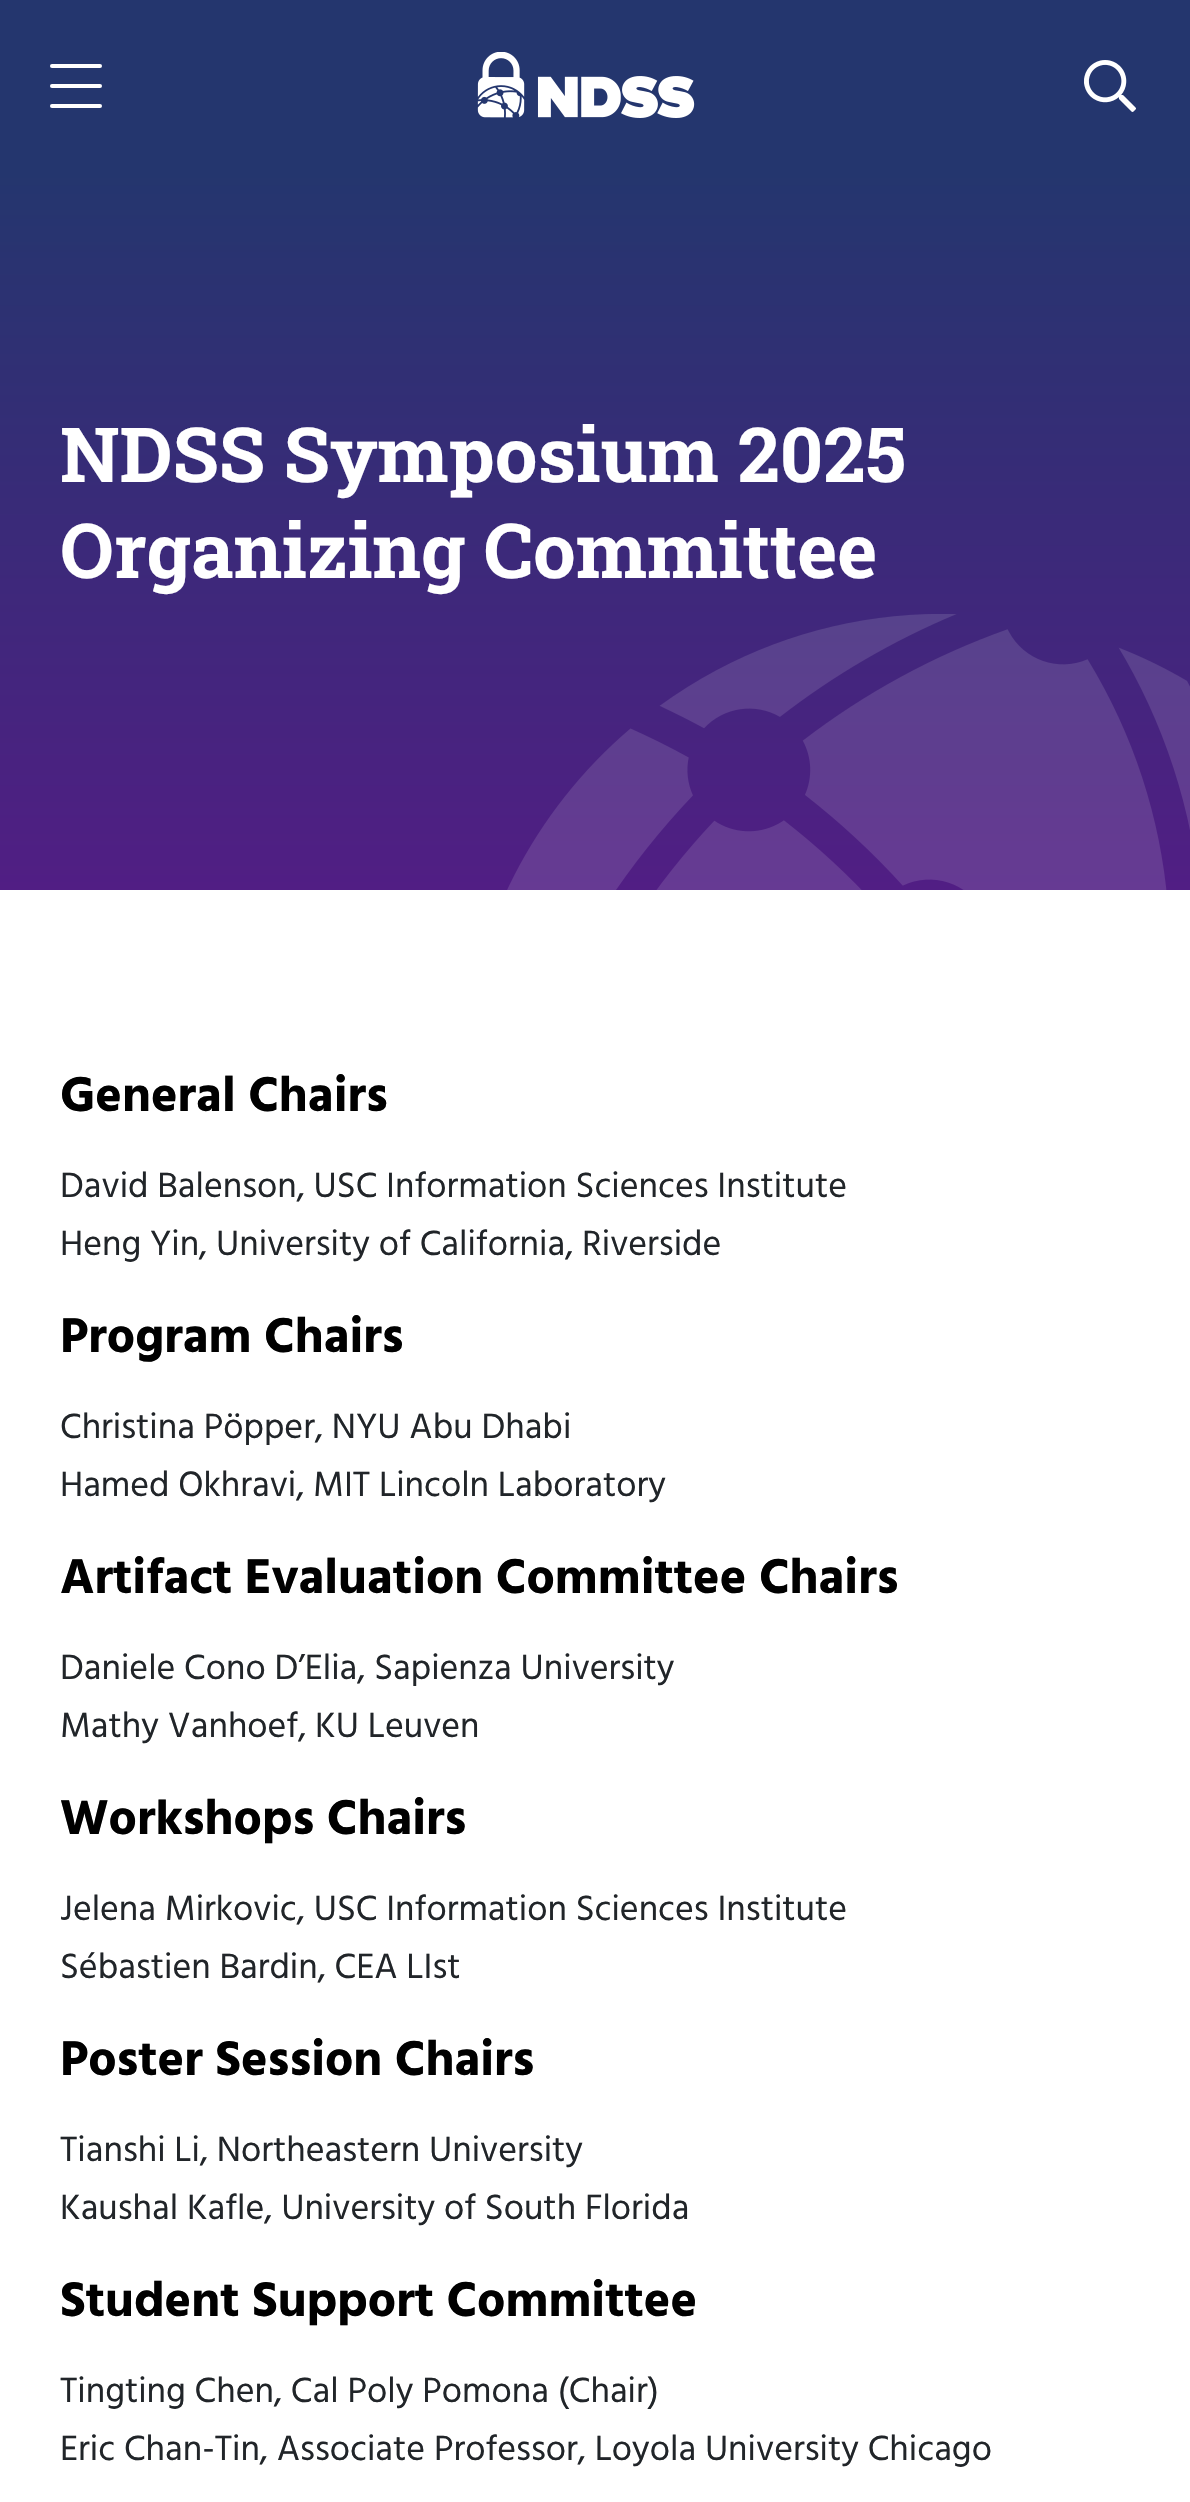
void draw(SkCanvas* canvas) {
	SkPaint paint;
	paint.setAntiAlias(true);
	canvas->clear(0xffffffff);
	paint.setColor(0xff24366e);
	canvas->drawRect(SkRect::MakeXYWH(0, 0, 1190, 170), paint);
	paint.setColor(0xffffffff);
	canvas->drawRoundRect(SkRect::MakeXYWH(50, 64, 52, 4), 2, 2, paint);
	canvas->drawRoundRect(SkRect::MakeXYWH(50, 84, 52, 4), 2, 2, paint);
	canvas->drawRoundRect(SkRect::MakeXYWH(50, 104, 52, 4), 2, 2, paint);
	canvas->drawImageRect(SkImages::DeferredFromEncodedData(SkData::MakeFromFileName("img1.png")), SkRect::MakeXYWH(477, 52, 218, 66), SkSamplingOptions());
	canvas->drawImageRect(SkImages::DeferredFromEncodedData(SkData::MakeFromFileName("img2.png")), SkRect::MakeXYWH(1084, 60, 52, 52), SkSamplingOptions());
	{
		const SkColor colors[] = {0xff24366e, 0xff511e84};
		const float stops[] = {0, 1};
		const SkPoint ends[] = {{595, 170}, {595, 890}};
		paint.setShader(SkGradientShader::MakeLinear(ends, colors, stops, 2, SkTileMode::kClamp));
		paint.setAlpha(255);
	}
	canvas->drawRect(SkRect::MakeXYWH(0, 170, 1190, 720), paint);
	SkFont f1(fontMgr->matchFamilyStyle("Roboto Slab", SkFontStyle::Bold()), 76);
	f1.setSubpixel(true);
	paint.setShader(nullptr);
	paint.setColor(0xffffffff);
	canvas->drawString("NDSS Symposium 2025", 60, 482, f1, paint);
	canvas->drawString("Organizing Committee", 60, 578, f1, paint);
	canvas->drawImageRect(SkImages::DeferredFromEncodedData(SkData::MakeFromFileName("img3.png")), SkRect::MakeXYWH(507, 614, 683, 276), SkSamplingOptions());
	SkFont f2(fontMgr->matchFamilyStyle("Hind", SkFontStyle::Bold()), 50);
	f2.setSubpixel(true);
	paint.setColor(0xff000000);
	canvas->drawString("General Chairs", 60, 1111, f2, paint);
	SkFont f3(fontMgr->matchFamilyStyle("Hind", SkFontStyle::Normal()), 36);
	f3.setSubpixel(true);
	paint.setColor(0xff212529);
	canvas->drawString("David Balenson, USC Information Sciences Institute", 60, 1197, f3, paint);
	canvas->drawString("Heng Yin, University of California, Riverside", 60, 1255, f3, paint);
	paint.setColor(0xff000000);
	canvas->drawString("Program Chairs", 60, 1352, f2, paint);
	paint.setColor(0xff212529);
	canvas->drawString("Christina Pöpper, NYU Abu Dhabi", 60, 1438, f3, paint);
	canvas->drawString("Hamed Okhravi, MIT Lincoln Laboratory", 60, 1496, f3, paint);
	paint.setColor(0xff000000);
	canvas->drawString("Artifact Evaluation Committee Chairs", 60, 1593, f2, paint);
	paint.setColor(0xff212529);
	canvas->drawString("Daniele Cono D’Elia, Sapienza University", 60, 1679, f3, paint);
	canvas->drawString("Mathy Vanhoef, KU Leuven", 60, 1737, f3, paint);
	paint.setColor(0xff000000);
	canvas->drawString("Workshops Chairs", 60, 1834, f2, paint);
	paint.setColor(0xff212529);
	canvas->drawString("Jelena Mirkovic, USC Information Sciences Institute", 60, 1920, f3, paint);
	canvas->drawString("Sébastien Bardin, CEA LIst", 60, 1978, f3, paint);
	paint.setColor(0xff000000);
	canvas->drawString("Poster Session Chairs", 60, 2075, f2, paint);
	paint.setColor(0xff212529);
	canvas->drawString("Tianshi Li, Northeastern University", 60, 2161, f3, paint);
	canvas->drawString("Kaushal Kafle, University of South Florida", 60, 2219, f3, paint);
	paint.setColor(0xff000000);
	canvas->drawString("Student Support Committee", 60, 2316, f2, paint);
	paint.setColor(0xff212529);
	canvas->drawString("Tingting Chen, Cal Poly Pomona (Chair)", 60, 2402, f3, paint);
	canvas->drawString("Eric Chan-Tin, Associate Professor, Loyola University Chicago", 60, 2460, f3, paint);
}
